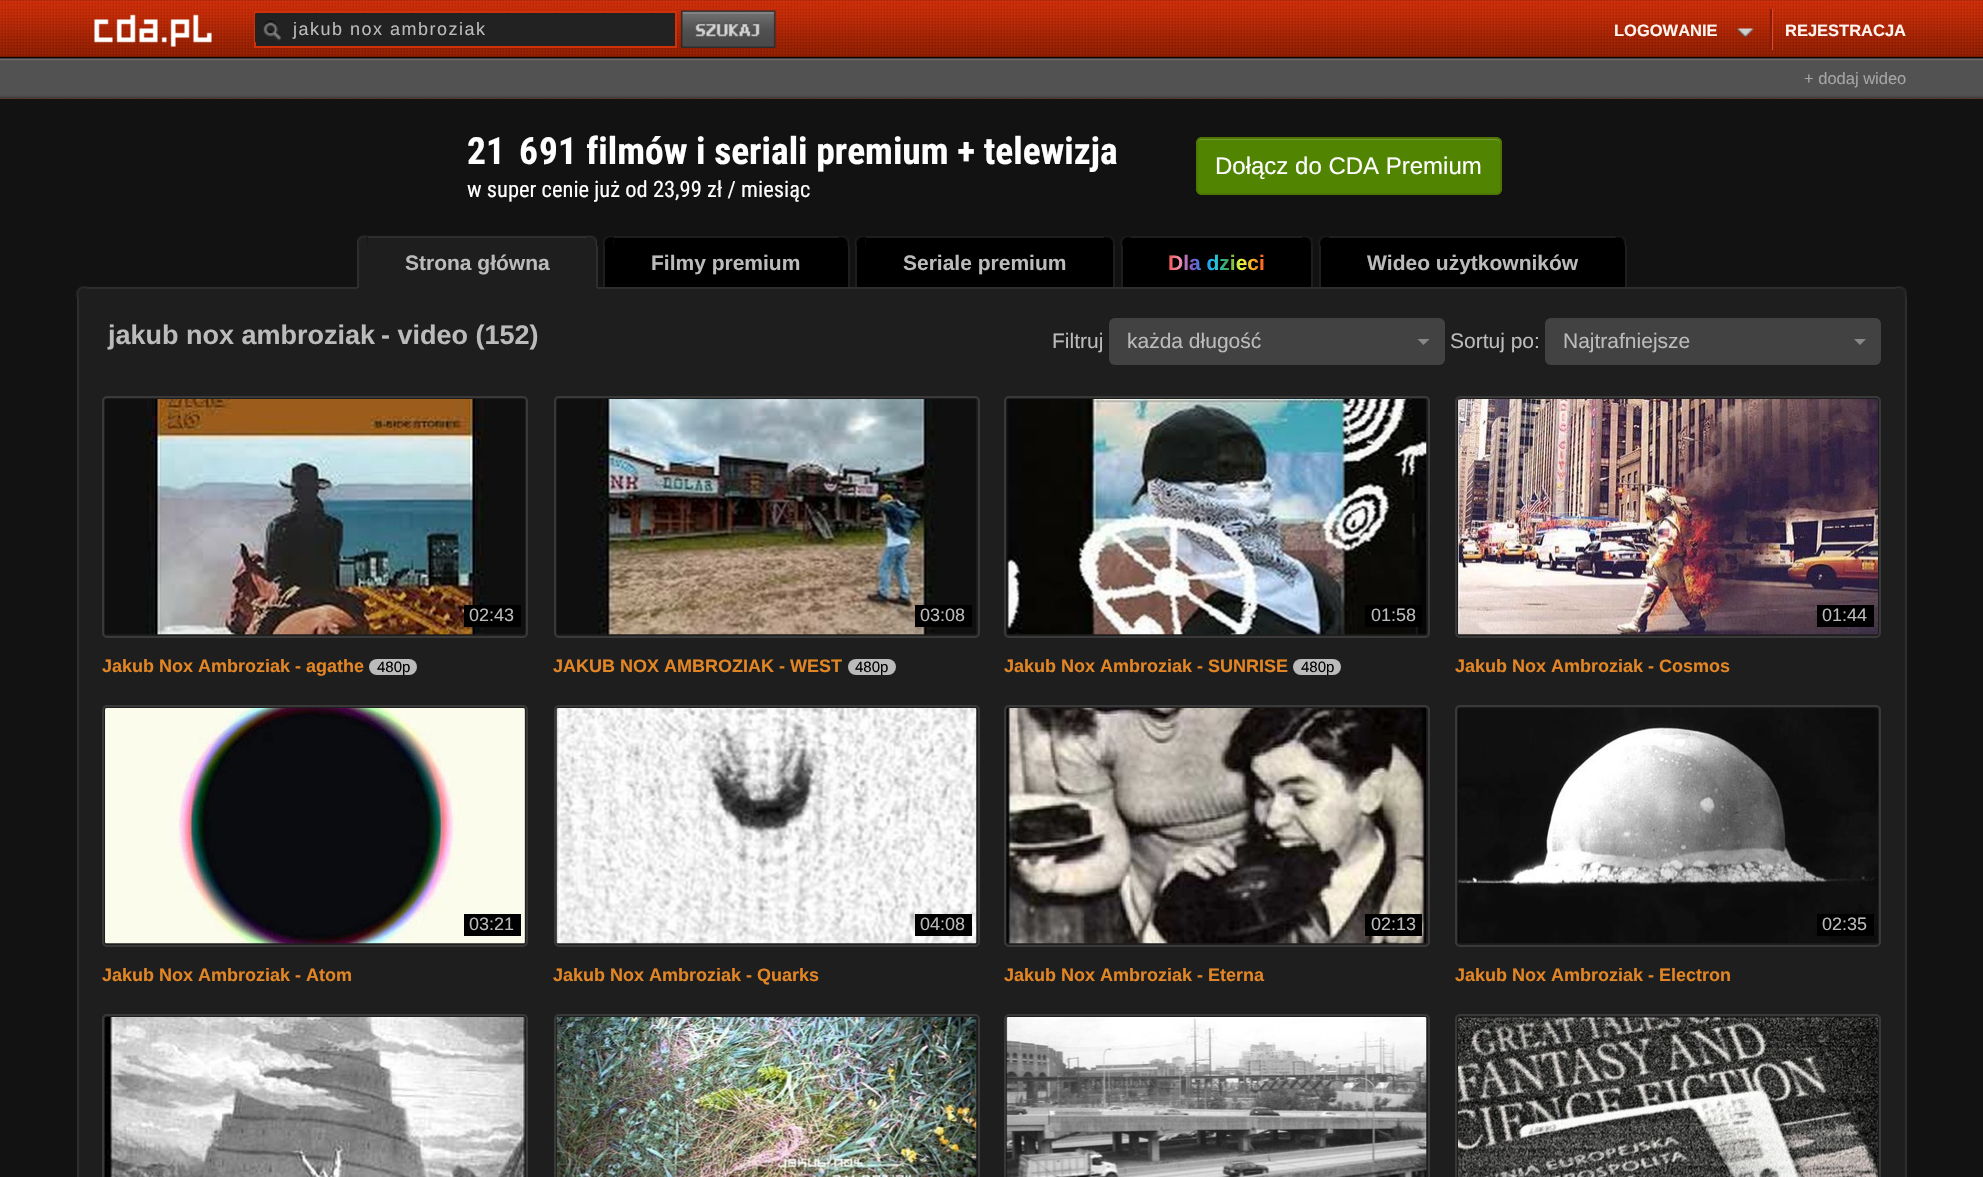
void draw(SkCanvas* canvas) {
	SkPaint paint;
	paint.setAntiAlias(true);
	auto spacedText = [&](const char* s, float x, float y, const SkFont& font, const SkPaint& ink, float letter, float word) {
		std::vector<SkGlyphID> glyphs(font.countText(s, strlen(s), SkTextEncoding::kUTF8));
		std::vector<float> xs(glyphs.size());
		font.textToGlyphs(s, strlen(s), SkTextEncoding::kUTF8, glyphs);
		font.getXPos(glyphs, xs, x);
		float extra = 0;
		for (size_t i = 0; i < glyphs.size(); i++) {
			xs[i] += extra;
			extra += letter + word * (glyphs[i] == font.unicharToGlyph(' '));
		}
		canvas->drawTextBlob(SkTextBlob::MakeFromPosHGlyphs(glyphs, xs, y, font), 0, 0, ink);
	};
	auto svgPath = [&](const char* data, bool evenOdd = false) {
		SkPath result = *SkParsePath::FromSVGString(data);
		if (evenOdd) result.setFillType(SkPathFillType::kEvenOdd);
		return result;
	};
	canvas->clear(0xff121212);
	canvas->drawImageRect(SkImages::DeferredFromEncodedData(SkData::MakeFromFileName("img1.png")), SkRect::MakeXYWH(0, 0, 1983, 99), SkSamplingOptions());
	canvas->drawImageRect(SkImages::DeferredFromEncodedData(SkData::MakeFromFileName("img2.png")), SkRect::MakeXYWH(94, 14, 118, 33), SkSamplingOptions());
	paint.setColor(0xff222222);
	canvas->drawRect(SkRect::MakeXYWH(255, 12, 421, 35), paint);
	paint.setStroke(true);
	paint.setStrokeWidth(2);
	paint.setColor(0xffcf320a);
	canvas->drawRect(SkRect::MakeXYWH(255, 12, 421, 35), paint);
	canvas->drawImageRect(SkImages::DeferredFromEncodedData(SkData::MakeFromFileName("img3.png")), SkRect::MakeXYWH(255, 13, 26, 29), SkSamplingOptions());
	SkFont f1(fontMgr->matchFamilyStyle("Liberation Sans", SkFontStyle::Normal()), 18);
	f1.setSubpixel(true);
	paint.setStroke(false);
	paint.setColor(0xffbbbbbb);
	spacedText("jakub nox ambroziak", 293, 35, f1, paint, 1.5, 0);
	canvas->drawImageRect(SkImages::DeferredFromEncodedData(SkData::MakeFromFileName("img4.png")), SkRect::MakeXYWH(681, 10, 95, 38), SkSamplingOptions());
	SkFont f2(fontMgr->matchFamilyStyle("Liberation Sans", SkFontStyle::Bold()), 16.5);
	f2.setSubpixel(true);
	paint.setColor(0xfffff4ef);
	canvas->drawString("LOGOWANIE", 1614, 36, f2, paint);
	canvas->drawImageRect(SkImages::DeferredFromEncodedData(SkData::MakeFromFileName("img5.png")), SkRect::MakeXYWH(1736, 28, 18, 10), SkSamplingOptions());
	paint.setColor(0xffdf4928);
	canvas->drawRect(SkRect::MakeXYWH(1772, 9, 1, 41), paint);
	paint.setColor(0xff8c1b0c);
	canvas->drawRect(SkRect::MakeXYWH(1770, 9, 2, 41), paint);
	paint.setColor(0xfffff4ef);
	canvas->drawString("REJESTRACJA", 1785, 36, f2, paint);
	SkFont f3(fontMgr->matchFamilyStyle("Liberation Sans", SkFontStyle::Normal()), 16.5);
	f3.setSubpixel(true);
	paint.setColor(0xffa5a5a5);
	canvas->drawString("+ dodaj wideo", 1804, 84, f3, paint);
	SkFont f4(fontMgr->matchFamilyStyle("Roboto Condensed", SkFontStyle::Bold()), 37.5);
	f4.setSubpixel(true);
	paint.setColor(0xffffffff);
	canvas->drawString("2", 467, 164, f4, paint);
	canvas->drawString("1", 486, 164, f4, paint);
	canvas->drawString("6", 519, 164, f4, paint);
	canvas->drawString("9", 539, 164, f4, paint);
	canvas->drawString("1", 558, 164, f4, paint);
	canvas->save();
	canvas->clipRect(SkRect::MakeXYWH(587, 132, 532, 60));
	canvas->drawString("filmów i seriali premium + telewizja", 586, 164, f4, paint);
	canvas->restore();
	SkFont f5(fontMgr->matchFamilyStyle("Roboto Condensed", SkFontStyle::Normal()), 22.5);
	f5.setSubpixel(true);
	canvas->drawString("w super cenie już od 23,99 zł / miesiąc", 467, 197, f5, paint);
	paint.setColor(0xff508401);
	canvas->drawRoundRect(SkRect::MakeXYWH(1196, 137, 306, 58), 6, 6, paint);
	paint.setColor(0xff739d34);
	canvas->drawPath(svgPath("M1202 140H1496C1498 140 1500 142 1500 144V143C1500 140 1498 138 1495 138H1202C1199 138 1197 140 1197 143V144C1197 142 1199 140 1202 140Z"), paint);
	paint.setStroke(true);
	paint.setColor(0xff4e7600);
	canvas->drawRoundRect(SkRect::MakeXYWH(1197, 138, 304, 56), 5, 5, paint);
	SkFont f6(fontMgr->matchFamilyStyle("Liberation Sans", SkFontStyle::Normal()), 24);
	f6.setSubpixel(true);
	paint.setStroke(false);
	paint.setColor(0xffffffff);
	canvas->drawString("Dołącz do CDA Premium", 1215, 174, f6, paint);
	canvas->drawImageRect(SkImages::DeferredFromEncodedData(SkData::MakeFromFileName("img6.png")), SkRect::MakeXYWH(357, 235, 11, 11), SkSamplingOptions());
	paint.setColor(0xff2e2e2e);
	canvas->drawRect(SkRect::MakeXYWH(368, 236, 219, 2), paint);
	canvas->drawRect(SkRect::MakeXYWH(87, 287, 1809, 2), paint);
	paint.setColor(0xff1e1e1e);
	canvas->drawRect(SkRect::MakeXYWH(368, 238, 219, 50), paint);
	canvas->drawImageRect(SkImages::DeferredFromEncodedData(SkData::MakeFromFileName("img7.png")), SkRect::MakeXYWH(586, 235, 11, 11), SkSamplingOptions());
	canvas->drawRect(SkRect::MakeXYWH(359, 246, 9, 42), paint);
	paint.setColor(0xff2e2e2e);
	canvas->drawRect(SkRect::MakeXYWH(357, 246, 2, 42), paint);
	SkFont f7(fontMgr->matchFamilyStyle("Liberation Sans", SkFontStyle::Bold()), 21);
	f7.setSubpixel(true);
	paint.setColor(0xffbbbbbb);
	canvas->drawString("Strona główna", 405, 270, f7, paint);
	paint.setColor(0xff1e1e1e);
	canvas->drawRect(SkRect::MakeXYWH(587, 246, 9, 42), paint);
	paint.setColor(0xff2e2e2e);
	canvas->drawRect(SkRect::MakeXYWH(596, 246, 2, 42), paint);
	paint.setColor(0xff1e1e1e);
	canvas->drawRect(SkRect::MakeXYWH(357, 288, 240, 1), paint);
	canvas->drawImageRect(SkImages::DeferredFromEncodedData(SkData::MakeFromFileName("img8.png")), SkRect::MakeXYWH(603, 236, 11, 10), SkSamplingOptions());
	canvas->drawRect(SkRect::MakeXYWH(614, 236, 225, 2), paint);
	paint.setColor(0xff000000);
	canvas->drawRect(SkRect::MakeXYWH(614, 238, 225, 49), paint);
	canvas->drawImageRect(SkImages::DeferredFromEncodedData(SkData::MakeFromFileName("img9.png")), SkRect::MakeXYWH(838, 236, 11, 10), SkSamplingOptions());
	canvas->drawRect(SkRect::MakeXYWH(605, 246, 9, 41), paint);
	paint.setColor(0xff1e1e1e);
	canvas->drawRect(SkRect::MakeXYWH(603, 246, 2, 41), paint);
	paint.setColor(0xffbbbbbb);
	canvas->drawString("Filmy premium", 651, 270, f7, paint);
	paint.setColor(0xff000000);
	canvas->drawRect(SkRect::MakeXYWH(839, 246, 9, 41), paint);
	paint.setColor(0xff1e1e1e);
	canvas->drawRect(SkRect::MakeXYWH(848, 246, 2, 41), paint);
	canvas->drawImageRect(SkImages::DeferredFromEncodedData(SkData::MakeFromFileName("img10.png")), SkRect::MakeXYWH(855, 236, 11, 10), SkSamplingOptions());
	canvas->drawImageRect(SkImages::DeferredFromEncodedData(SkData::MakeFromFileName("img11.png")), SkRect::MakeXYWH(1104, 236, 11, 10), SkSamplingOptions());
	canvas->drawRect(SkRect::MakeXYWH(866, 236, 238, 2), paint);
	paint.setColor(0xff000000);
	canvas->drawRect(SkRect::MakeXYWH(857, 246, 9, 41), paint);
	paint.setColor(0xff1e1e1e);
	canvas->drawRect(SkRect::MakeXYWH(855, 246, 2, 41), paint);
	paint.setColor(0xff000000);
	canvas->drawRect(SkRect::MakeXYWH(866, 238, 238, 49), paint);
	paint.setColor(0xffbbbbbb);
	canvas->drawString("Seriale premium", 903, 270, f7, paint);
	paint.setColor(0xff000000);
	canvas->drawRect(SkRect::MakeXYWH(1104, 246, 9, 41), paint);
	paint.setColor(0xff1e1e1e);
	canvas->drawRect(SkRect::MakeXYWH(1113, 246, 2, 41), paint);
	canvas->drawImageRect(SkImages::DeferredFromEncodedData(SkData::MakeFromFileName("img12.png")), SkRect::MakeXYWH(1120, 236, 11, 10), SkSamplingOptions());
	canvas->drawImageRect(SkImages::DeferredFromEncodedData(SkData::MakeFromFileName("img13.png")), SkRect::MakeXYWH(1302, 236, 11, 10), SkSamplingOptions());
	canvas->drawRect(SkRect::MakeXYWH(1131, 236, 171, 2), paint);
	paint.setColor(0xff000000);
	canvas->drawRect(SkRect::MakeXYWH(1123, 246, 8, 41), paint);
	paint.setColor(0xff1e1e1e);
	canvas->drawRect(SkRect::MakeXYWH(1121, 246, 2, 41), paint);
	paint.setColor(0xff000000);
	canvas->drawRect(SkRect::MakeXYWH(1131, 238, 171, 49), paint);
	{
		const SkColor colors[] = {0xffef5350, 0xfff48fb1, 0xff7e57c2, 0xff2196f3, 0xff26c6da, 0xff43a047, 0xffeeff41, 0xfff9a825, 0xffff5722};
		const float stops[] = {0, 0.12, 0.25, 0.38, 0.5, 0.62, 0.75, 0.88, 1};
		const SkPoint ends[] = {{1168, 263}, {1265, 263}};
		paint.setShader(SkGradientShader::MakeLinear(ends, colors, stops, 9, SkTileMode::kClamp));
		paint.setAlpha(255);
	}
	canvas->drawString("Dla dzieci", 1168, 270, f7, paint);
	paint.setShader(nullptr);
	paint.setColor(0xff000000);
	canvas->drawRect(SkRect::MakeXYWH(1302, 246, 9, 41), paint);
	paint.setColor(0xff1e1e1e);
	canvas->drawRect(SkRect::MakeXYWH(1311, 246, 2, 41), paint);
	canvas->drawImageRect(SkImages::DeferredFromEncodedData(SkData::MakeFromFileName("img12.png")), SkRect::MakeXYWH(1318, 236, 11, 10), SkSamplingOptions());
	canvas->drawRect(SkRect::MakeXYWH(1329, 236, 287, 2), paint);
	paint.setColor(0xff000000);
	canvas->drawRect(SkRect::MakeXYWH(1329, 238, 287, 49), paint);
	canvas->drawImageRect(SkImages::DeferredFromEncodedData(SkData::MakeFromFileName("img9.png")), SkRect::MakeXYWH(1615, 236, 11, 10), SkSamplingOptions());
	canvas->drawRect(SkRect::MakeXYWH(1321, 246, 8, 41), paint);
	paint.setColor(0xff1e1e1e);
	canvas->drawRect(SkRect::MakeXYWH(1319, 246, 2, 41), paint);
	paint.setColor(0xffbbbbbb);
	canvas->drawString("Wideo użytkowników", 1367, 270, f7, paint);
	paint.setColor(0xff000000);
	canvas->drawRect(SkRect::MakeXYWH(1616, 246, 9, 41), paint);
	paint.setColor(0xff1e1e1e);
	canvas->drawRect(SkRect::MakeXYWH(1625, 246, 2, 41), paint);
	canvas->drawImageRect(SkImages::DeferredFromEncodedData(SkData::MakeFromFileName("img14.png")), SkRect::MakeXYWH(76, 286, 11, 11), SkSamplingOptions());
	canvas->drawRect(SkRect::MakeXYWH(87, 289, 1809, 8), paint);
	canvas->drawImageRect(SkImages::DeferredFromEncodedData(SkData::MakeFromFileName("img15.png")), SkRect::MakeXYWH(1896, 286, 11, 11), SkSamplingOptions());
	canvas->drawRect(SkRect::MakeXYWH(79, 297, 1826, 880), paint);
	paint.setColor(0xff2e2e2e);
	canvas->drawRect(SkRect::MakeXYWH(1905, 297, 2, 880), paint);
	canvas->drawRect(SkRect::MakeXYWH(77, 297, 2, 880), paint);
	SkFont f8(fontMgr->matchFamilyStyle("Liberation Sans", SkFontStyle::Bold()), 27);
	f8.setSubpixel(true);
	paint.setColor(0xffbbbbbb);
	canvas->drawString("jakub nox ambroziak", 108, 344, f8, paint);
	canvas->drawString("- video (152)", 381, 344, f8, paint);
	SkFont f9(fontMgr->matchFamilyStyle("Liberation Sans", SkFontStyle::Normal()), 21);
	f9.setSubpixel(true);
	canvas->drawString("Filtruj", 1052, 348, f9, paint);
	paint.setColor(0xff424242);
	canvas->drawRoundRect(SkRect::MakeXYWH(1109, 318, 336, 47), 6, 6, paint);
	paint.setColor(0xffbbbbbb);
	canvas->drawString("każda długość", 1127, 348, f9, paint);
	paint.setColor(0xff888888);
	canvas->drawPath(svgPath("M1417.5 339H1429.5L1423.5 345Z"), paint);
	paint.setColor(0xffbbbbbb);
	canvas->drawString("Sortuj po:", 1450, 348, f9, paint);
	paint.setColor(0xff424242);
	canvas->drawRoundRect(SkRect::MakeXYWH(1545, 318, 336, 47), 6, 6, paint);
	paint.setColor(0xffbbbbbb);
	canvas->drawString("Najtrafniejsze", 1563, 348, f9, paint);
	paint.setColor(0xff888888);
	canvas->drawPath(svgPath("M1854 339H1866L1860 345Z"), paint);
	paint.setStroke(true);
	paint.setColor(0xff393939);
	canvas->drawRoundRect(SkRect::MakeXYWH(103, 397, 424, 240), 4, 4, paint);
	canvas->drawImageRect(SkImages::DeferredFromEncodedData(SkData::MakeFromFileName("img16.png")), SkRect::MakeXYWH(105, 399, 420, 236), SkSamplingOptions());
	paint.setStroke(false);
	paint.setColor(0xff000000);
	canvas->drawRect(SkRect::MakeXYWH(464, 605, 57, 22), paint);
	paint.setColor(0xffbbbbbb);
	canvas->drawString("02:43", 469, 621, f1, paint);
	SkFont f10(fontMgr->matchFamilyStyle("Liberation Sans", SkFontStyle::Bold()), 18);
	f10.setSubpixel(true);
	paint.setColor(0xffe28525);
	canvas->drawString("Jakub Nox Ambroziak - agathe", 102, 672, f10, paint);
	paint.setColor(0xffbbbbbb);
	canvas->drawRoundRect(SkRect::MakeXYWH(369, 659, 48, 16), 8, 8, paint);
	SkFont f11(fontMgr->matchFamilyStyle("Liberation Sans", SkFontStyle::Normal()), 15);
	f11.setSubpixel(true);
	paint.setColor(0xff000000);
	canvas->drawString("480p", 377, 672, f11, paint);
	paint.setStroke(true);
	paint.setColor(0xff393939);
	canvas->drawRoundRect(SkRect::MakeXYWH(555, 397, 424, 240), 4, 4, paint);
	canvas->drawImageRect(SkImages::DeferredFromEncodedData(SkData::MakeFromFileName("img17.png")), SkRect::MakeXYWH(556, 399, 421, 236), SkSamplingOptions());
	paint.setStroke(false);
	paint.setColor(0xff000000);
	canvas->drawRect(SkRect::MakeXYWH(915, 605, 57, 22), paint);
	paint.setColor(0xffbbbbbb);
	canvas->drawString("03:08", 920, 621, f1, paint);
	paint.setColor(0xffe28525);
	canvas->drawString("JAKUB NOX AMBROZIAK - WEST", 553, 672, f10, paint);
	paint.setColor(0xffbbbbbb);
	canvas->drawRoundRect(SkRect::MakeXYWH(848, 659, 48, 16), 8, 8, paint);
	paint.setColor(0xff000000);
	canvas->drawString("480p", 855, 672, f11, paint);
	paint.setStroke(true);
	paint.setColor(0xff393939);
	canvas->drawRoundRect(SkRect::MakeXYWH(1005, 397, 424, 240), 4, 4, paint);
	canvas->drawImageRect(SkImages::DeferredFromEncodedData(SkData::MakeFromFileName("img18.png")), SkRect::MakeXYWH(1006, 399, 421, 236), SkSamplingOptions());
	paint.setStroke(false);
	paint.setColor(0xff000000);
	canvas->drawRect(SkRect::MakeXYWH(1365, 605, 57, 22), paint);
	paint.setColor(0xffbbbbbb);
	canvas->drawString("01:58", 1371, 621, f1, paint);
	paint.setColor(0xffe28525);
	canvas->drawString("Jakub Nox Ambroziak - SUNRISE", 1004, 672, f10, paint);
	paint.setColor(0xffbbbbbb);
	canvas->drawRoundRect(SkRect::MakeXYWH(1293, 659, 48, 16), 8, 8, paint);
	paint.setColor(0xff000000);
	canvas->drawString("480p", 1301, 672, f11, paint);
	paint.setStroke(true);
	paint.setColor(0xff393939);
	canvas->drawRoundRect(SkRect::MakeXYWH(1456, 397, 424, 240), 4, 4, paint);
	canvas->drawImageRect(SkImages::DeferredFromEncodedData(SkData::MakeFromFileName("img19.png")), SkRect::MakeXYWH(1458, 399, 420, 236), SkSamplingOptions());
	paint.setStroke(false);
	paint.setColor(0xff000000);
	canvas->drawRect(SkRect::MakeXYWH(1817, 605, 57, 22), paint);
	paint.setColor(0xffbbbbbb);
	canvas->drawString("01:44", 1822, 621, f1, paint);
	paint.setColor(0xffe28525);
	canvas->drawString("Jakub Nox Ambroziak - Cosmos", 1455, 672, f10, paint);
	paint.setStroke(true);
	paint.setColor(0xff393939);
	canvas->drawRoundRect(SkRect::MakeXYWH(103, 706, 424, 240), 4, 4, paint);
	canvas->drawImageRect(SkImages::DeferredFromEncodedData(SkData::MakeFromFileName("img20.png")), SkRect::MakeXYWH(105, 708, 420, 236), SkSamplingOptions());
	paint.setStroke(false);
	paint.setColor(0xff000000);
	canvas->drawRect(SkRect::MakeXYWH(464, 914, 57, 22), paint);
	paint.setColor(0xffbbbbbb);
	canvas->drawString("03:21", 469, 930, f1, paint);
	paint.setColor(0xffe28525);
	canvas->drawString("Jakub Nox Ambroziak - Atom", 102, 981, f10, paint);
	paint.setStroke(true);
	paint.setColor(0xff393939);
	canvas->drawRoundRect(SkRect::MakeXYWH(555, 706, 424, 240), 4, 4, paint);
	canvas->drawImageRect(SkImages::DeferredFromEncodedData(SkData::MakeFromFileName("img21.png")), SkRect::MakeXYWH(556, 708, 421, 236), SkSamplingOptions());
	paint.setStroke(false);
	paint.setColor(0xff000000);
	canvas->drawRect(SkRect::MakeXYWH(915, 914, 57, 22), paint);
	paint.setColor(0xffbbbbbb);
	canvas->drawString("04:08", 920, 930, f1, paint);
	paint.setColor(0xffe28525);
	canvas->drawString("Jakub Nox Ambroziak - Quarks", 553, 981, f10, paint);
	paint.setStroke(true);
	paint.setColor(0xff393939);
	canvas->drawRoundRect(SkRect::MakeXYWH(1005, 706, 424, 240), 4, 4, paint);
	canvas->drawImageRect(SkImages::DeferredFromEncodedData(SkData::MakeFromFileName("img22.png")), SkRect::MakeXYWH(1006, 708, 421, 236), SkSamplingOptions());
	paint.setStroke(false);
	paint.setColor(0xff000000);
	canvas->drawRect(SkRect::MakeXYWH(1365, 914, 57, 22), paint);
	paint.setColor(0xffbbbbbb);
	canvas->drawString("02:13", 1371, 930, f1, paint);
	paint.setColor(0xffe28525);
	canvas->drawString("Jakub Nox Ambroziak - Eterna", 1004, 981, f10, paint);
	paint.setStroke(true);
	paint.setColor(0xff393939);
	canvas->drawRoundRect(SkRect::MakeXYWH(1456, 706, 424, 240), 4, 4, paint);
	canvas->drawImageRect(SkImages::DeferredFromEncodedData(SkData::MakeFromFileName("img23.png")), SkRect::MakeXYWH(1458, 708, 420, 236), SkSamplingOptions());
	paint.setStroke(false);
	paint.setColor(0xff000000);
	canvas->drawRect(SkRect::MakeXYWH(1817, 914, 57, 22), paint);
	paint.setColor(0xffbbbbbb);
	canvas->drawString("02:35", 1822, 930, f1, paint);
	paint.setColor(0xffe28525);
	canvas->drawString("Jakub Nox Ambroziak - Electron", 1455, 981, f10, paint);
	paint.setStroke(true);
	paint.setColor(0xff393939);
	canvas->drawRoundRect(SkRect::MakeXYWH(103, 1015, 424, 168), 4, 4, paint);
	canvas->drawImageRect(SkImages::DeferredFromEncodedData(SkData::MakeFromFileName("img24.png")), SkRect::MakeXYWH(105, 1017, 420, 160), SkSamplingOptions());
	canvas->drawRoundRect(SkRect::MakeXYWH(555, 1015, 424, 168), 4, 4, paint);
	canvas->drawImageRect(SkImages::DeferredFromEncodedData(SkData::MakeFromFileName("img25.png")), SkRect::MakeXYWH(556, 1017, 421, 160), SkSamplingOptions());
	canvas->drawRoundRect(SkRect::MakeXYWH(1005, 1015, 424, 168), 4, 4, paint);
	canvas->drawImageRect(SkImages::DeferredFromEncodedData(SkData::MakeFromFileName("img26.png")), SkRect::MakeXYWH(1006, 1017, 421, 160), SkSamplingOptions());
	canvas->drawRoundRect(SkRect::MakeXYWH(1456, 1015, 424, 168), 4, 4, paint);
	canvas->drawImageRect(SkImages::DeferredFromEncodedData(SkData::MakeFromFileName("img27.png")), SkRect::MakeXYWH(1458, 1017, 420, 160), SkSamplingOptions());
}
